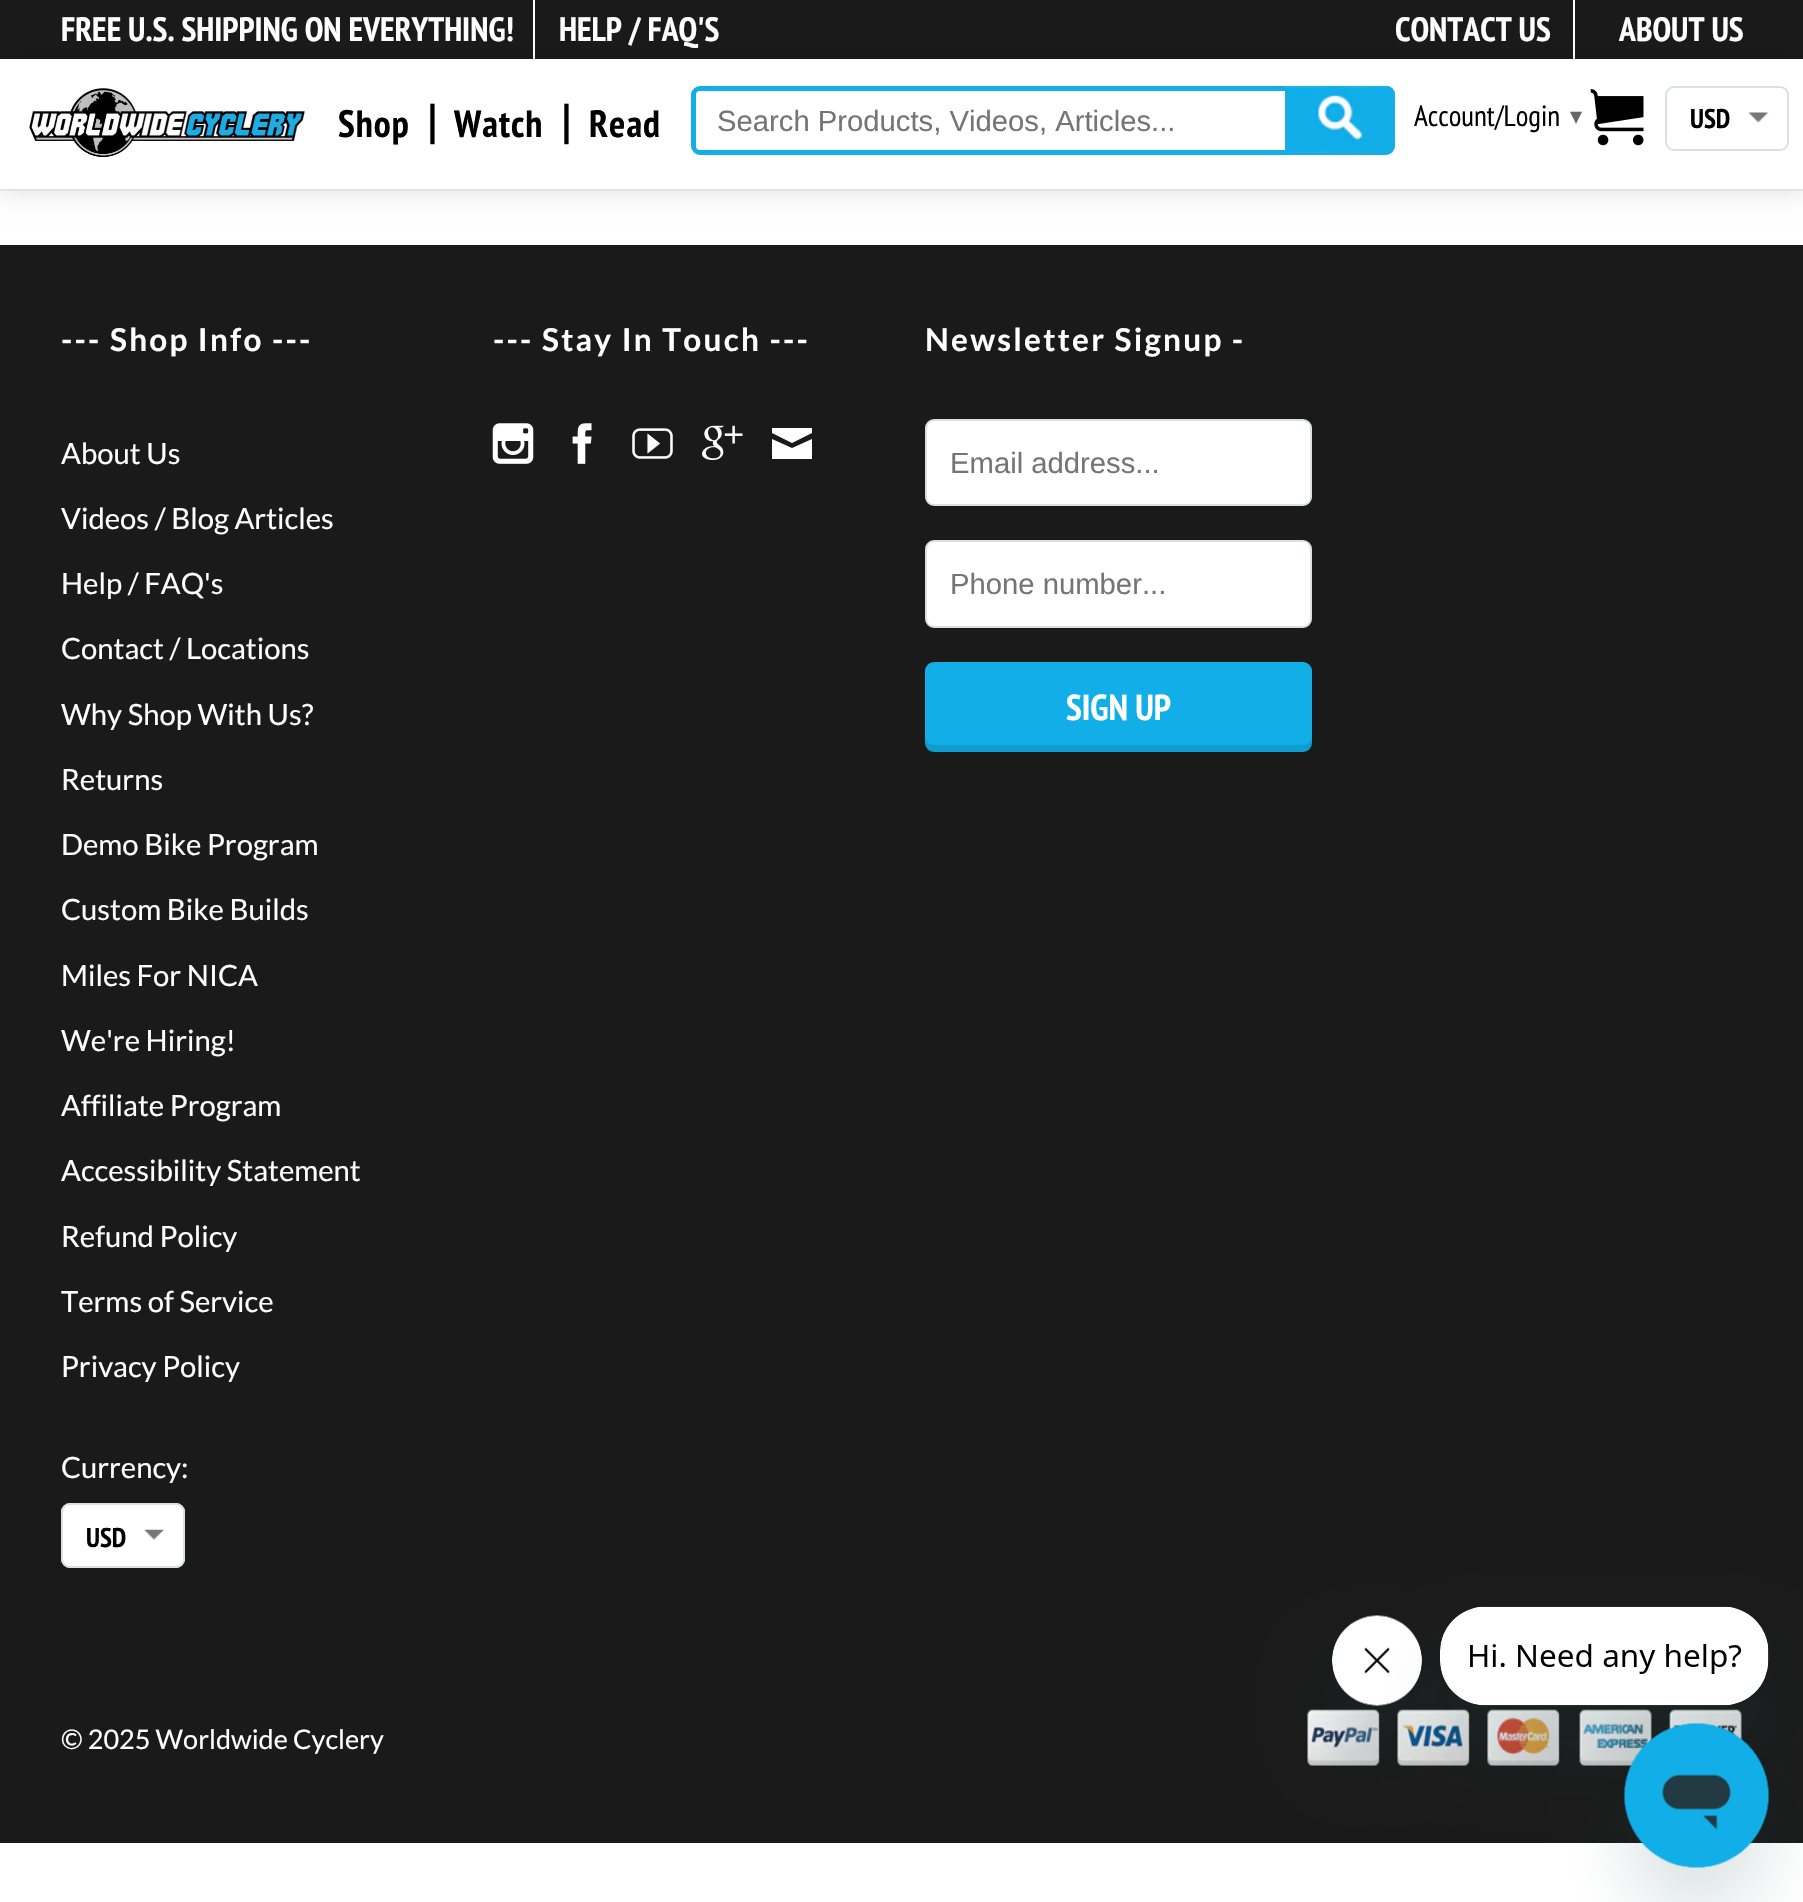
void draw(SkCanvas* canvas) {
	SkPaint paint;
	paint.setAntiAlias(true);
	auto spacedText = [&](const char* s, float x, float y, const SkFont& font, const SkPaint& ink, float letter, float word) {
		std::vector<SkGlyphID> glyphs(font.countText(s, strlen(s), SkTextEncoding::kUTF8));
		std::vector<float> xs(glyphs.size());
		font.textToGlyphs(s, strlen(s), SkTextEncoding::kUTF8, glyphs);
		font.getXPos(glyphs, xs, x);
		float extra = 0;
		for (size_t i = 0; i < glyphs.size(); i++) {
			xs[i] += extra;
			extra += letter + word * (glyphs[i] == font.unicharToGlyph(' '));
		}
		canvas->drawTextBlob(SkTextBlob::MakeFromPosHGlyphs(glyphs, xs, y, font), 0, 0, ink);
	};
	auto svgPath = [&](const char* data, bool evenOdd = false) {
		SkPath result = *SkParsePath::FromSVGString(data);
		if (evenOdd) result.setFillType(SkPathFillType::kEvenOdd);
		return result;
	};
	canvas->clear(0xffffffff);
	paint.setColor(0xff1a1a1a);
	canvas->drawRect(SkRect::MakeXYWH(0, 0, 1803, 59), paint);
	paint.setColor(0xffffffff);
	canvas->drawRect(SkRect::MakeXYWH(533, 0, 2, 59), paint);
	SkFont f1(fontMgr->matchFamilyStyle("PT Sans Narrow", SkFontStyle::Bold()), 33.75);
	f1.setSubpixel(true);
	canvas->drawString("FREE U.S. SHIPPING ON EVERYTHING!", 61, 41, f1, paint);
	canvas->drawString("HELP / FAQ'S", 559, 41, f1, paint);
	canvas->drawRect(SkRect::MakeXYWH(1573, 0, 2, 59), paint);
	canvas->drawString("CONTACT US", 1395, 41, f1, paint);
	canvas->drawString("ABOUT US", 1619, 41, f1, paint);
	paint.setColor(0x1a000000);
	paint.setMaskFilter(SkMaskFilter::MakeBlur(kNormal_SkBlurStyle, 11));
	canvas->drawRect(SkRect::MakeXYWH(0, 61, 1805, 133), paint);
	paint.setMaskFilter(nullptr);
	paint.setColor(0xffffffff);
	canvas->drawRect(SkRect::MakeXYWH(0, 59, 1803, 130), paint);
	paint.setColor(0xffe3e3e3);
	canvas->drawRect(SkRect::MakeXYWH(0, 189, 1803, 2), paint);
	canvas->drawImageRect(SkImages::DeferredFromEncodedData(SkData::MakeFromFileName("img1.png")), SkRect::MakeXYWH(29, 88, 276, 69), SkSamplingOptions());
	SkFont f2(fontMgr->matchFamilyStyle("PT Sans Narrow", SkFontStyle::Bold()), 38);
	f2.setSubpixel(true);
	paint.setColor(0xff000000);
	spacedText("Shop", 338, 137, f2, paint, 1, 0);
	SkFont f3(fontMgr->matchFamilyStyle("Lato", SkFontStyle::Bold()), 43);
	f3.setSubpixel(true);
	canvas->drawString("|", 426, 137, f3, paint);
	spacedText("Watch", 454, 137, f2, paint, 1, 0);
	canvas->drawString("|", 560, 137, f3, paint);
	spacedText("Read", 589, 137, f2, paint, 1, 0);
	paint.setStroke(true);
	paint.setStrokeWidth(5);
	paint.setColor(0xff12aee8);
	canvas->drawRoundRect(SkRect::MakeXYWH(693.5, 88.5, 699, 64), 6.5, 6.5, paint);
	SkFont f4(fontMgr->matchFamilyStyle("Liberation Sans", SkFontStyle::Normal()), 29.25);
	f4.setSubpixel(true);
	paint.setStroke(false);
	paint.setColor(0xff757575);
	canvas->drawString("Search Products, Videos, Articles...", 717, 131, f4, paint);
	canvas->drawImageRect(SkImages::DeferredFromEncodedData(SkData::MakeFromFileName("img2.png")), SkRect::MakeXYWH(1285, 85, 110, 68), SkSamplingOptions());
	SkFont f5(fontMgr->matchFamilyStyle("PT Sans Narrow", SkFontStyle::Normal()), 29.25);
	f5.setSubpixel(true);
	paint.setColor(0xff000000);
	canvas->drawString("Account/Login", 1414, 126, f5, paint);
	SkFont f6(fontMgr->matchFamilyStyle("DejaVu Sans", SkFontStyle::Normal()), 24);
	f6.setSubpixel(true);
	paint.setColor(0xff666666);
	canvas->drawString("▾", 1570, 124, f6, paint);
	canvas->drawImageRect(SkImages::DeferredFromEncodedData(SkData::MakeFromFileName("img3.png")), SkRect::MakeXYWH(1590, 89, 54, 57), SkSamplingOptions());
	canvas->drawImageRect(SkImages::DeferredFromEncodedData(SkData::MakeFromFileName("img4.png")), SkRect::MakeXYWH(1748, 112, 21, 11), SkSamplingOptions());
	paint.setStroke(true);
	paint.setStrokeWidth(2);
	paint.setColor(0xffdce0e0);
	canvas->drawRoundRect(SkRect::MakeXYWH(1666, 87, 122, 63), 8, 8, paint);
	SkFont f7(fontMgr->matchFamilyStyle("PT Sans Narrow", SkFontStyle::Bold()), 27);
	f7.setSubpixel(true);
	paint.setStroke(false);
	paint.setColor(0xff000000);
	canvas->drawString("USD", 1690, 128, f7, paint);
	paint.setColor(0xff1a1a1a);
	canvas->drawRect(SkRect::MakeXYWH(0, 245, 1803, 1598), paint);
	SkFont f8(fontMgr->matchFamilyStyle("Lato", SkFontStyle::Bold()), 31.5);
	f8.setSubpixel(true);
	paint.setColor(0xffffffff);
	spacedText("--- Shop Info ---", 61, 351, f8, paint, 2.25, 0);
	SkFont f9(fontMgr->matchFamilyStyle("Lato", SkFontStyle::Normal()), 29.25);
	f9.setSubpixel(true);
	canvas->drawString("About Us", 61, 464, f9, paint);
	canvas->drawString("Videos / Blog Articles", 61, 529, f9, paint);
	canvas->drawString("Help / FAQ's", 61, 594, f9, paint);
	canvas->drawString("Contact / Locations", 61, 659, f9, paint);
	canvas->drawString("Why Shop With Us?", 61, 725, f9, paint);
	canvas->drawString("Returns", 61, 790, f9, paint);
	canvas->drawString("Demo Bike Program", 61, 855, f9, paint);
	canvas->drawString("Custom Bike Builds", 61, 920, f9, paint);
	canvas->drawString("Miles For NICA", 61, 986, f9, paint);
	canvas->drawString("We're Hiring!", 61, 1051, f9, paint);
	canvas->drawString("Affiliate Program", 61, 1116, f9, paint);
	canvas->drawString("Accessibility Statement", 61, 1181, f9, paint);
	canvas->drawString("Refund Policy", 61, 1247, f9, paint);
	canvas->drawString("Terms of Service", 61, 1312, f9, paint);
	canvas->drawString("Privacy Policy", 61, 1377, f9, paint);
	spacedText("--- Stay In Touch ---", 493, 351, f8, paint, 2.25, 0);
	canvas->drawImageRect(SkImages::DeferredFromEncodedData(SkData::MakeFromFileName("img5.png")), SkRect::MakeXYWH(492, 423, 42, 41), SkSamplingOptions());
	canvas->drawImageRect(SkImages::DeferredFromEncodedData(SkData::MakeFromFileName("img6.png")), SkRect::MakeXYWH(572, 423, 20, 41), SkSamplingOptions());
	canvas->drawImageRect(SkImages::DeferredFromEncodedData(SkData::MakeFromFileName("img7.png")), SkRect::MakeXYWH(632, 428, 41, 31), SkSamplingOptions());
	canvas->drawImageRect(SkImages::DeferredFromEncodedData(SkData::MakeFromFileName("img8.png")), SkRect::MakeXYWH(702, 425, 41, 35), SkSamplingOptions());
	canvas->drawPath(svgPath("M792 443L772 433V428H812V433ZM792 448L812 439V459H772V439Z"), paint);
	spacedText("Newsletter Signup -", 925, 351, f8, paint, 2.25, 0);
	canvas->drawRoundRect(SkRect::MakeXYWH(926, 420, 385, 85), 8, 8, paint);
	paint.setStroke(true);
	paint.setColor(0xffdce0e0);
	canvas->drawRoundRect(SkRect::MakeXYWH(926, 420, 385, 85), 8, 8, paint);
	paint.setStroke(false);
	paint.setColor(0xff757575);
	canvas->drawString("Email address...", 950, 473, f4, paint);
	paint.setColor(0xffffffff);
	canvas->drawRoundRect(SkRect::MakeXYWH(926, 541, 385, 86), 8, 8, paint);
	paint.setStroke(true);
	paint.setColor(0xffdce0e0);
	canvas->drawRoundRect(SkRect::MakeXYWH(926, 541, 385, 86), 8, 8, paint);
	paint.setStroke(false);
	paint.setColor(0xff757575);
	canvas->drawString("Phone number...", 950, 594, f4, paint);
	paint.setColor(0xff12aee8);
	canvas->drawRoundRect(SkRect::MakeXYWH(925, 662, 387, 90), 9, 9, paint);
	paint.setColor(0x1a000000);
	canvas->drawPath(svgPath("M925 736V743C925 748 929 752 934 752H1303C1308 752 1312 748 1312 743V736C1312 741 1308 745 1303 745H934C929 745 925 741 925 736Z"), paint);
	SkFont f10(fontMgr->matchFamilyStyle("PT Sans Narrow", SkFontStyle::Bold()), 36);
	f10.setSubpixel(true);
	paint.setColor(0xffffffff);
	canvas->drawString("SIGN UP", 1066, 720, f10, paint);
	canvas->drawString("Currency:", 61, 1478, f9, paint);
	canvas->drawRoundRect(SkRect::MakeXYWH(61, 1503, 124, 65), 9, 9, paint);
	canvas->drawImageRect(SkImages::DeferredFromEncodedData(SkData::MakeFromFileName("img9.png")), SkRect::MakeXYWH(144, 1529, 21, 11), SkSamplingOptions());
	paint.setStroke(true);
	paint.setColor(0xffdce0e0);
	canvas->drawRoundRect(SkRect::MakeXYWH(62, 1504, 122, 63), 8, 8, paint);
	paint.setStroke(false);
	paint.setColor(0xff000000);
	canvas->drawString("USD", 86, 1547, f7, paint);
	SkFont f11(fontMgr->matchFamilyStyle("Lato", SkFontStyle::Normal()), 27);
	f11.setSubpixel(true);
	paint.setColor(0xffffffff);
	canvas->drawString("© 2025 Worldwide Cyclery", 61, 1749, f11, paint);
	canvas->drawImageRect(SkImages::DeferredFromEncodedData(SkData::MakeFromFileName("img10.png")), SkRect::MakeXYWH(1306, 1709, 74, 57), SkSamplingOptions());
	canvas->drawImageRect(SkImages::DeferredFromEncodedData(SkData::MakeFromFileName("img11.png")), SkRect::MakeXYWH(1396, 1709, 74, 58), SkSamplingOptions());
	canvas->drawImageRect(SkImages::DeferredFromEncodedData(SkData::MakeFromFileName("img12.png")), SkRect::MakeXYWH(1486, 1709, 74, 57), SkSamplingOptions());
	canvas->drawImageRect(SkImages::DeferredFromEncodedData(SkData::MakeFromFileName("img13.png")), SkRect::MakeXYWH(1579, 1709, 73, 58), SkSamplingOptions());
	canvas->drawImageRect(SkImages::DeferredFromEncodedData(SkData::MakeFromFileName("img14.png")), SkRect::MakeXYWH(1669, 1709, 73, 32), SkSamplingOptions());
	paint.setColor(0x2617494d);
	paint.setMaskFilter(SkMaskFilter::MakeBlur(kNormal_SkBlurStyle, 34));
	canvas->drawRoundRect(SkRect::MakeXYWH(1332, 1661, 90, 90), 45, 45, paint);
	paint.setMaskFilter(nullptr);
	canvas->drawImageRect(SkImages::DeferredFromEncodedData(SkData::MakeFromFileName("img16.png")), SkRect::MakeXYWH(1332, 1615, 90, 91), SkSamplingOptions());
	paint.setMaskFilter(SkMaskFilter::MakeBlur(kNormal_SkBlurStyle, 34));
	canvas->drawRoundRect(SkRect::MakeXYWH(1440, 1652, 329, 99), 45, 45, paint);
	paint.setMaskFilter(nullptr);
	canvas->drawImageRect(SkImages::DeferredFromEncodedData(SkData::MakeFromFileName("img15.png")), SkRect::MakeXYWH(1440, 1606, 329, 100), SkSamplingOptions());
	paint.setMaskFilter(SkMaskFilter::MakeBlur(kNormal_SkBlurStyle, 34));
	canvas->drawRoundRect(SkRect::MakeXYWH(1625, 1769, 144, 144), 72, 72, paint);
	paint.setMaskFilter(nullptr);
	canvas->drawImageRect(SkImages::DeferredFromEncodedData(SkData::MakeFromFileName("img17.png")), SkRect::MakeXYWH(1624, 1723, 145, 145), SkSamplingOptions());
}
